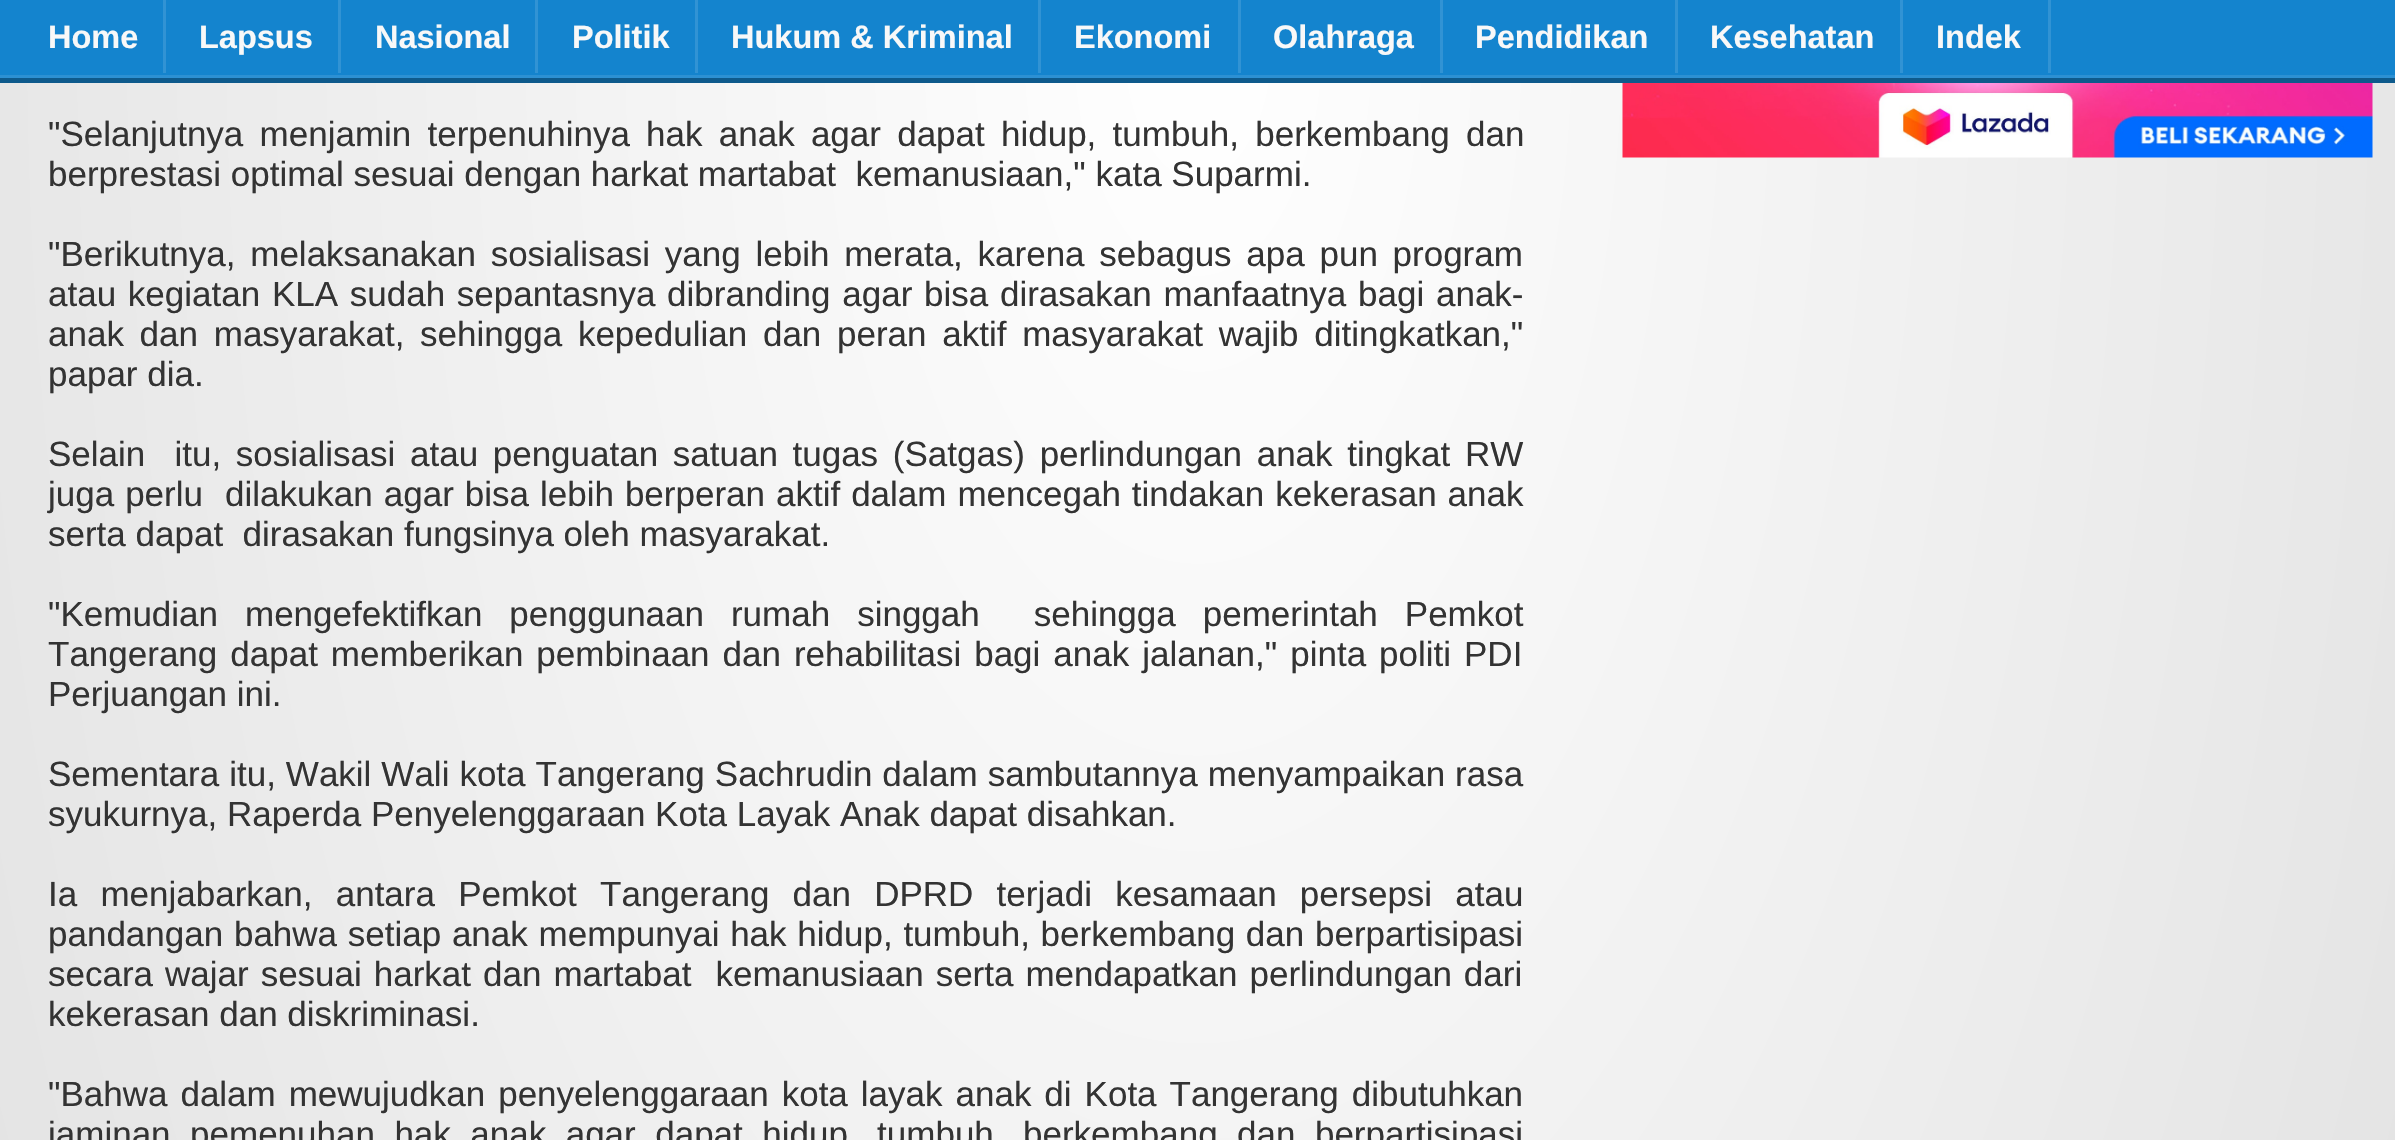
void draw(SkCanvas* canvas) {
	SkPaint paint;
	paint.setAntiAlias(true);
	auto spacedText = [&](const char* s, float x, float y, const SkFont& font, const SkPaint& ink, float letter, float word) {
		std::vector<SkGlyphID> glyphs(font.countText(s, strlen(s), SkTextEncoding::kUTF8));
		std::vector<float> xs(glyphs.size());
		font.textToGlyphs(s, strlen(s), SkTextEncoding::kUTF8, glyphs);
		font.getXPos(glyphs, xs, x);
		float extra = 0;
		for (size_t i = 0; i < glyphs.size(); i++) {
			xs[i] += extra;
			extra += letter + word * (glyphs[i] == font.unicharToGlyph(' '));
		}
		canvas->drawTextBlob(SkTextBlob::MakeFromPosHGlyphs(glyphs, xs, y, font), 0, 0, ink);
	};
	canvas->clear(0xffffffff);
	{
		const SkColor colors[] = {0xffffffff, 0xffdddddd};
		const float stops[] = {0, 1};
		SkMatrix m = SkMatrix::Translate(1198, 36).preScale(1694, 3262);
		paint.setShader(SkGradientShader::MakeRadial({0, 0}, 1, colors, stops, 2, SkTileMode::kClamp, 0, &m));
		paint.setAlpha(255);
	}
	canvas->drawRect(SkRect::MakeXYWH(0, 83, 2395, 1057), paint);
	paint.setShader(nullptr);
	paint.setColor(0xff0e5a8c);
	canvas->drawRect(SkRect::MakeXYWH(0, 78, 2395, 5), paint);
	paint.setColor(0xff1484ce);
	canvas->drawRect(SkRect::MakeXYWH(0, 0, 2395, 75), paint);
	paint.setColor(0xff2c90d3);
	canvas->drawRect(SkRect::MakeXYWH(0, 75, 2395, 3), paint);
	paint.setColor(0xff3193d4);
	canvas->drawRect(SkRect::MakeXYWH(163, 0, 3, 73), paint);
	SkFont f1(fontMgr->matchFamilyStyle("Liberation Sans", SkFontStyle::Bold()), 32.5);
	f1.setSubpixel(true);
	paint.setColor(0xfff8f8f8);
	canvas->drawString("Home", 48, 48, f1, paint);
	paint.setColor(0xff3193d4);
	canvas->drawRect(SkRect::MakeXYWH(338, 0, 3, 73), paint);
	paint.setColor(0xfff8f8f8);
	canvas->drawString("Lapsus", 199, 48, f1, paint);
	paint.setColor(0xff3193d4);
	canvas->drawRect(SkRect::MakeXYWH(535, 0, 3, 73), paint);
	paint.setColor(0xfff8f8f8);
	canvas->drawString("Nasional", 375, 48, f1, paint);
	paint.setColor(0xff3193d4);
	canvas->drawRect(SkRect::MakeXYWH(695, 0, 3, 73), paint);
	paint.setColor(0xfff8f8f8);
	canvas->drawString("Politik", 572, 48, f1, paint);
	paint.setColor(0xff3193d4);
	canvas->drawRect(SkRect::MakeXYWH(1038, 0, 3, 73), paint);
	paint.setColor(0xfff8f8f8);
	canvas->drawString("Hukum & Kriminal", 731, 48, f1, paint);
	paint.setColor(0xff3193d4);
	canvas->drawRect(SkRect::MakeXYWH(1238, 0, 3, 73), paint);
	paint.setColor(0xfff8f8f8);
	canvas->drawString("Ekonomi", 1074, 48, f1, paint);
	paint.setColor(0xff3193d4);
	canvas->drawRect(SkRect::MakeXYWH(1440, 0, 3, 73), paint);
	paint.setColor(0xfff8f8f8);
	canvas->drawString("Olahraga", 1273, 48, f1, paint);
	paint.setColor(0xff3193d4);
	canvas->drawRect(SkRect::MakeXYWH(1675, 0, 3, 73), paint);
	paint.setColor(0xfff8f8f8);
	canvas->drawString("Pendidikan", 1475, 48, f1, paint);
	paint.setColor(0xff3193d4);
	canvas->drawRect(SkRect::MakeXYWH(1900, 0, 3, 73), paint);
	paint.setColor(0xfff8f8f8);
	canvas->drawString("Kesehatan", 1710, 48, f1, paint);
	paint.setColor(0xff3193d4);
	canvas->drawRect(SkRect::MakeXYWH(2048, 0, 3, 73), paint);
	paint.setColor(0xfff8f8f8);
	canvas->drawString("Indek", 1936, 48, f1, paint);
	SkFont f2(fontMgr->matchFamilyStyle("Liberation Sans", SkFontStyle::Normal()), 35);
	f2.setSubpixel(true);
	paint.setColor(0xff333333);
	spacedText("\"Selanjutnya menjamin terpenuhinya hak anak agar dapat hidup, tumbuh, berkembang dan", 48, 146, f2, paint, 0, 6.5);
	canvas->drawString("berprestasi optimal sesuai dengan harkat martabat  kemanusiaan,\" kata Suparmi.", 48, 186, f2, paint);
	spacedText("\"Berikutnya, melaksanakan sosialisasi yang lebih merata, karena sebagus apa pun program", 48, 266, f2, paint, 0, 5);
	spacedText("atau kegiatan KLA sudah sepantasnya dibranding agar bisa dirasakan manfaatnya bagi anak-", 48, 306, f2, paint, 0, 2);
	spacedText("anak dan masyarakat, sehingga kepedulian dan peran aktif masyarakat wajib ditingkatkan,\"", 48, 346, f2, paint, 0, 6);
	canvas->drawString("papar dia.", 48, 386, f2, paint);
	spacedText("Selain  itu, sosialisasi atau penguatan satuan tugas (Satgas) perlindungan anak tingkat RW", 48, 466, f2, paint, 0, 4.9);
	spacedText("juga perlu  dilakukan agar bisa lebih berperan aktif dalam mencegah tindakan kekerasan anak", 48, 506, f2, paint, 0, 1.25);
	canvas->drawString("serta dapat  dirasakan fungsinya oleh masyarakat.", 48, 546, f2, paint);
	spacedText("\"Kemudian mengefektifkan penggunaan rumah singgah  sehingga pemerintah Pemkot", 48, 626, f2, paint, 0, 17.25);
	spacedText("Tangerang dapat memberikan pembinaan dan rehabilitasi bagi anak jalanan,\" pinta politi PDI", 48, 666, f2, paint, 0, 3.25);
	canvas->drawString("Perjuangan ini.", 48, 706, f2, paint);
	spacedText("Sementara itu, Wakil Wali kota Tangerang Sachrudin dalam sambutannya menyampaikan rasa", 48, 786, f2, paint, 0, 0.25);
	canvas->drawString("syukurnya, Raperda Penyelenggaraan Kota Layak Anak dapat disahkan.", 48, 826, f2, paint);
	spacedText("Ia menjabarkan, antara Pemkot Tangerang dan DPRD terjadi kesamaan persepsi atau", 48, 906, f2, paint, 0, 13.5);
	spacedText("pandangan bahwa setiap anak mempunyai hak hidup, tumbuh, berkembang dan berpartisipasi", 48, 946, f2, paint, 0, 1);
	spacedText("secara wajar sesuai harkat dan martabat  kemanusiaan serta mendapatkan perlindungan dari", 48, 986, f2, paint, 0, 2.25);
	canvas->drawString("kekerasan dan diskriminasi.", 48, 1026, f2, paint);
	spacedText("\"Bahwa dalam mewujudkan penyelenggaraan kota layak anak di Kota Tangerang dibutuhkan", 48, 1106, f2, paint, 0, 3.25);
	spacedText("jaminan pemenuhan hak anak agar dapat hidup, tumbuh, berkembang dan berpartisipasi", 48, 1146, f2, paint, 0, 9.75);
	canvas->drawImageRect(SkImages::DeferredFromEncodedData(SkData::MakeFromFileName("img1.png")), SkRect::MakeXYWH(1622, 83, 751, 75), SkSamplingOptions());
}
